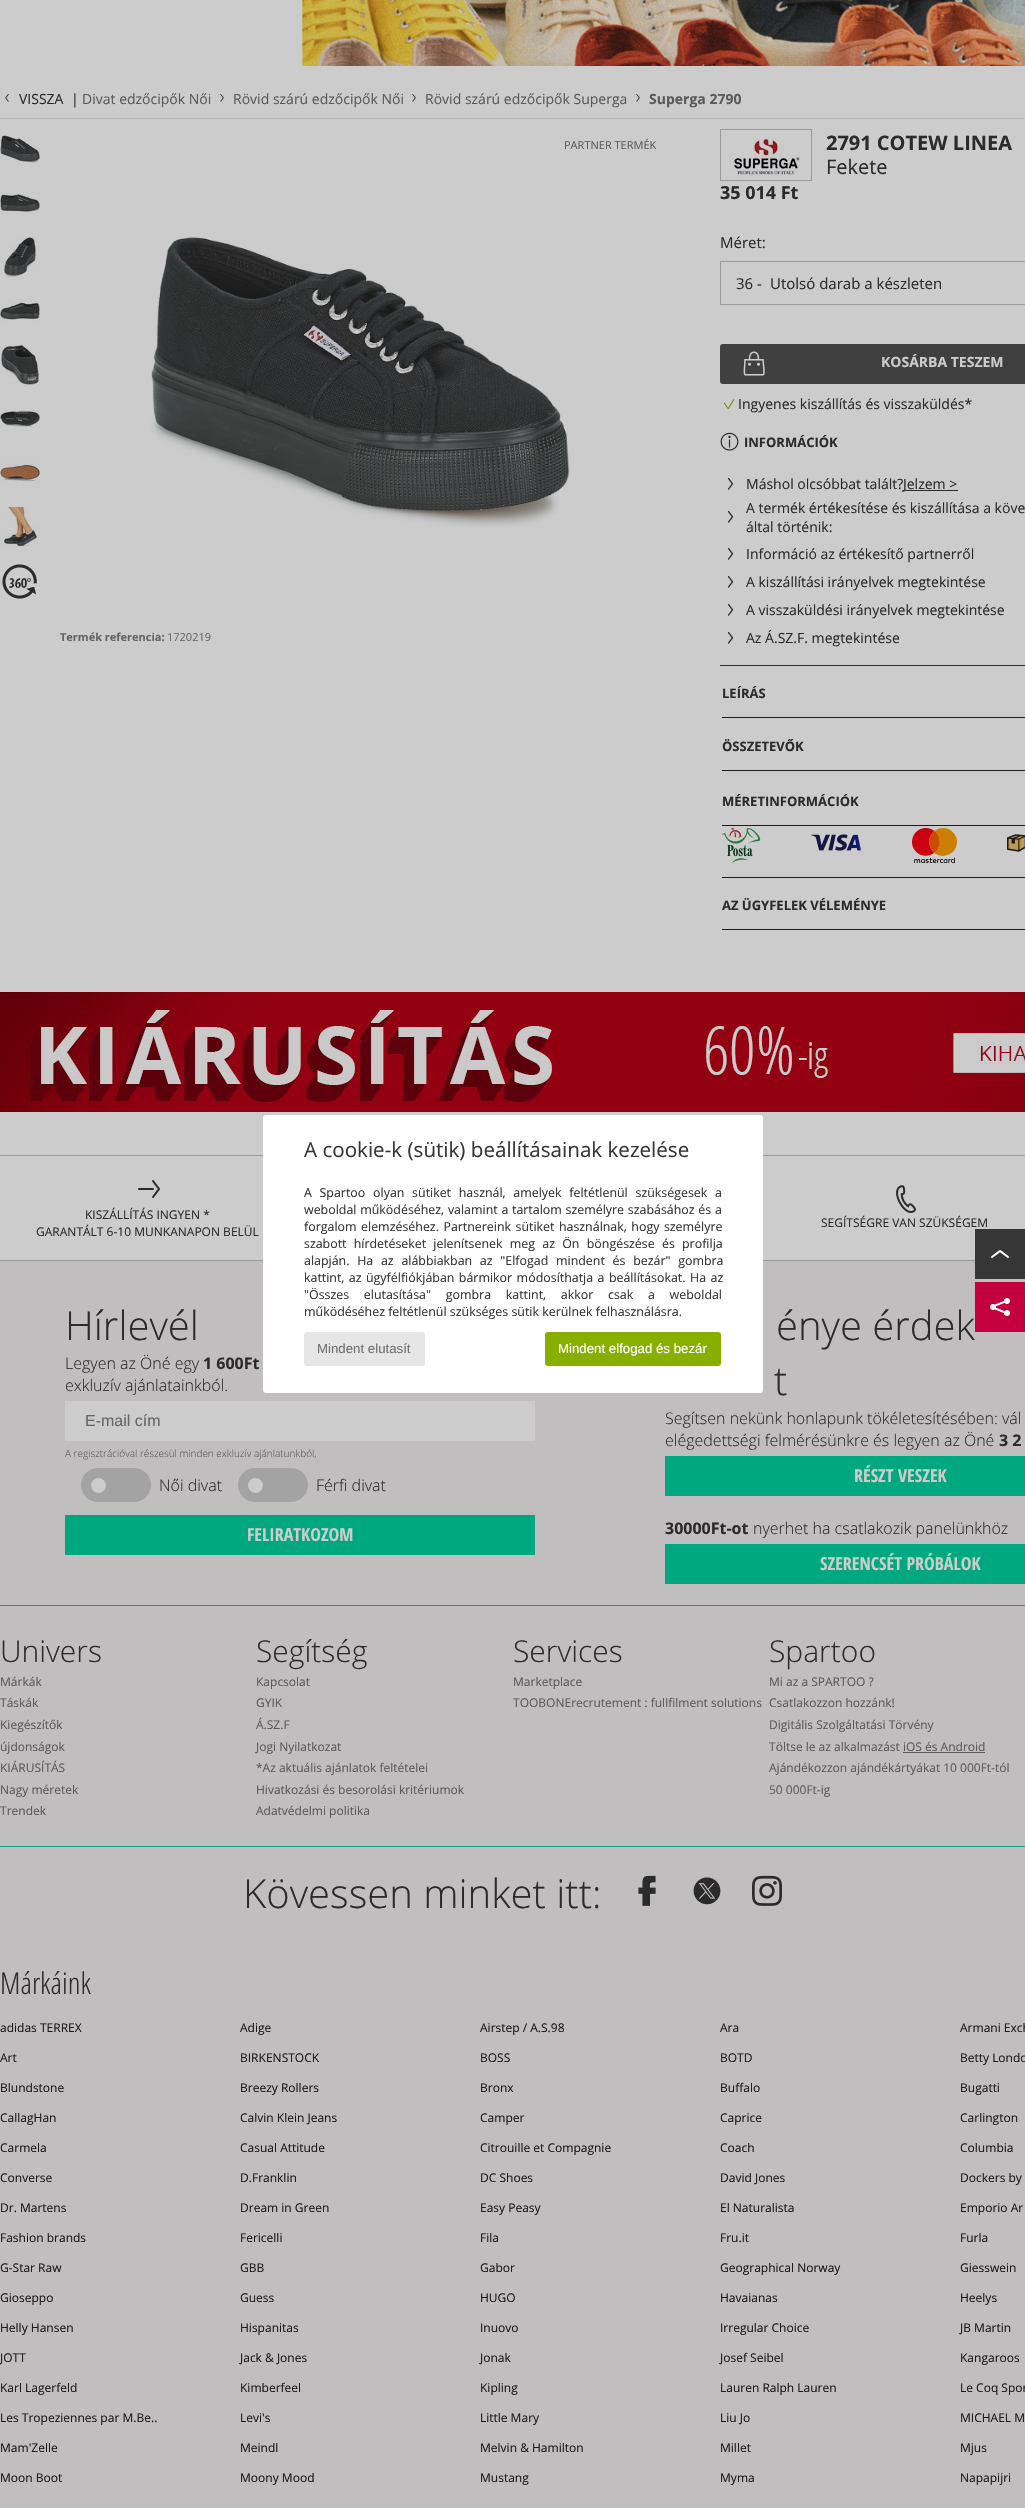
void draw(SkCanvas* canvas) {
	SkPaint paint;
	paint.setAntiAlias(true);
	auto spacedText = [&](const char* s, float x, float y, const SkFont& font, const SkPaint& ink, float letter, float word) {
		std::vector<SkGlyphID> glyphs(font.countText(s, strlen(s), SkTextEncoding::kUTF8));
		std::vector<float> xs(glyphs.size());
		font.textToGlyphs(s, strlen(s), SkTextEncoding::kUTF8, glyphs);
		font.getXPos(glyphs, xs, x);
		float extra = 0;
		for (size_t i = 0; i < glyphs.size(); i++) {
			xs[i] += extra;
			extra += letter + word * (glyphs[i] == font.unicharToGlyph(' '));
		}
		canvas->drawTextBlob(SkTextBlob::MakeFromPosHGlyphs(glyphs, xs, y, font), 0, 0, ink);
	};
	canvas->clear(0xffcccccc);
	canvas->drawImageRect(SkImages::DeferredFromEncodedData(SkData::MakeFromFileName("img1.png")), SkRect::MakeXYWH(296, 0, 729, 66), SkSamplingOptions());
	paint.setColor(0xffb8b8b8);
	canvas->drawRect(SkRect::MakeXYWH(0, 118, 1025, 1), paint);
	canvas->drawImageRect(SkImages::DeferredFromEncodedData(SkData::MakeFromFileName("img2.png")), SkRect::MakeXYWH(5, 94, 4, 8), SkSamplingOptions());
	SkFont f1(fontMgr->matchFamilyStyle("Open Sans", SkFontStyle::Normal()), 14);
	f1.setSubpixel(true);
	paint.setColor(0xff2b2b2b);
	canvas->drawString("VISSZA", 19, 104, f1, paint);
	canvas->drawString("|", 71, 104, f1, paint);
	paint.setColor(0xff5a5a5a);
	canvas->drawString("Divat edzőcipők Női", 82, 104, f1, paint);
	canvas->drawImageRect(SkImages::DeferredFromEncodedData(SkData::MakeFromFileName("img3.png")), SkRect::MakeXYWH(220, 94, 4, 8), SkSamplingOptions());
	canvas->drawString("Rövid szárú edzőcipők Női", 233, 104, f1, paint);
	canvas->drawImageRect(SkImages::DeferredFromEncodedData(SkData::MakeFromFileName("img3.png")), SkRect::MakeXYWH(412, 94, 4, 8), SkSamplingOptions());
	canvas->drawString("Rövid szárú edzőcipők Superga", 425, 104, f1, paint);
	canvas->drawImageRect(SkImages::DeferredFromEncodedData(SkData::MakeFromFileName("img3.png")), SkRect::MakeXYWH(636, 94, 4, 8), SkSamplingOptions());
	SkFont f2(fontMgr->matchFamilyStyle("Open Sans", SkFontStyle::Bold()), 14);
	f2.setSubpixel(true);
	canvas->drawString("Superga 2790", 649, 104, f2, paint);
	canvas->drawImageRect(SkImages::DeferredFromEncodedData(SkData::MakeFromFileName("img4.png")), SkRect::MakeXYWH(0, 135, 40, 29), SkSamplingOptions());
	canvas->drawImageRect(SkImages::DeferredFromEncodedData(SkData::MakeFromFileName("img5.png")), SkRect::MakeXYWH(0, 191, 40, 23), SkSamplingOptions());
	canvas->drawImageRect(SkImages::DeferredFromEncodedData(SkData::MakeFromFileName("img6.png")), SkRect::MakeXYWH(0, 237, 39, 40), SkSamplingOptions());
	canvas->drawImageRect(SkImages::DeferredFromEncodedData(SkData::MakeFromFileName("img7.png")), SkRect::MakeXYWH(0, 299, 40, 24), SkSamplingOptions());
	canvas->drawImageRect(SkImages::DeferredFromEncodedData(SkData::MakeFromFileName("img8.png")), SkRect::MakeXYWH(0, 345, 40, 40), SkSamplingOptions());
	canvas->drawImageRect(SkImages::DeferredFromEncodedData(SkData::MakeFromFileName("img9.png")), SkRect::MakeXYWH(0, 408, 40, 22), SkSamplingOptions());
	canvas->drawImageRect(SkImages::DeferredFromEncodedData(SkData::MakeFromFileName("img10.png")), SkRect::MakeXYWH(0, 453, 40, 32), SkSamplingOptions());
	canvas->drawImageRect(SkImages::DeferredFromEncodedData(SkData::MakeFromFileName("img11.png")), SkRect::MakeXYWH(0, 507, 39, 40), SkSamplingOptions());
	canvas->drawImageRect(SkImages::DeferredFromEncodedData(SkData::MakeFromFileName("img12.png")), SkRect::MakeXYWH(2, 564, 35, 35), SkSamplingOptions());
	SkFont f3(fontMgr->matchFamilyStyle("Open Sans", SkFontStyle::Normal()), 11);
	f3.setSubpixel(true);
	canvas->drawString("PARTNER TERMÉK", 564, 149, f3, paint);
	canvas->drawImageRect(SkImages::DeferredFromEncodedData(SkData::MakeFromFileName("img13.png")), SkRect::MakeXYWH(151, 237, 419, 290), SkSamplingOptions());
	SkFont f4(fontMgr->matchFamilyStyle("Open Sans", SkFontStyle::Bold()), 11);
	f4.setSubpixel(true);
	paint.setColor(0xff656565);
	canvas->drawString("Termék referencia:", 60, 641, f4, paint);
	canvas->drawString("1720219", 167, 641, f3, paint);
	paint.setStroke(true);
	paint.setStrokeWidth(1);
	paint.setColor(0xff9a9a9a);
	canvas->drawRect(SkRect::MakeXYWH(720.5, 129.5, 91, 51), paint);
	SkFont f5(fontMgr->matchFamilyStyle("Open Sans", SkFontStyle::Bold()), 20);
	f5.setSubpixel(true);
	paint.setStroke(false);
	paint.setColor(0xff2b2b2b);
	canvas->drawString("2791 COTEW LINEA", 826, 150, f5, paint);
	SkFont f6(fontMgr->matchFamilyStyle("Open Sans", SkFontStyle::Normal()), 20);
	f6.setSubpixel(true);
	canvas->drawString("Fekete", 826, 174, f6, paint);
	canvas->drawImageRect(SkImages::DeferredFromEncodedData(SkData::MakeFromFileName("img14.png")), SkRect::MakeXYWH(729, 138, 71, 39), SkSamplingOptions());
	SkFont f7(fontMgr->matchFamilyStyle("Open Sans", SkFontStyle::Bold()), 18);
	f7.setSubpixel(true);
	canvas->drawString("35 014 Ft", 720, 199, f7, paint);
	SkFont f8(fontMgr->matchFamilyStyle("Open Sans", SkFontStyle::Normal()), 15);
	f8.setSubpixel(true);
	canvas->drawString("Méret:", 720, 248, f8, paint);
	paint.setStroke(true);
	paint.setColor(0xff9a9a9a);
	canvas->drawRect(SkRect::MakeXYWH(720.5, 261.5, 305, 43), paint);
	paint.setStroke(false);
	paint.setColor(0xff2b2b2b);
	canvas->drawString("36 -", 736, 289, f8, paint);
	canvas->drawString("Utolsó darab a készleten", 770, 289, f8, paint);
	paint.setColor(0xff404040);
	canvas->drawRoundRect(SkRect::MakeXYWH(720, 344, 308, 40), 3, 3, paint);
	canvas->drawImageRect(SkImages::DeferredFromEncodedData(SkData::MakeFromFileName("img15.png")), SkRect::MakeXYWH(743, 351, 22, 25), SkSamplingOptions());
	paint.setColor(0xffcccccc);
	canvas->drawString("KOSÁRBA TESZEM", 881, 367, f2, paint);
	canvas->drawImageRect(SkImages::DeferredFromEncodedData(SkData::MakeFromFileName("img16.png")), SkRect::MakeXYWH(723, 399, 12, 11), SkSamplingOptions());
	paint.setColor(0xff2b2b2b);
	canvas->drawString("Ingyenes kiszállítás és visszaküldés*", 738, 409, f1, paint);
	canvas->drawRect(SkRect::MakeXYWH(720, 665, 305, 1), paint);
	canvas->drawImageRect(SkImages::DeferredFromEncodedData(SkData::MakeFromFileName("img17.png")), SkRect::MakeXYWH(720, 432, 19, 19), SkSamplingOptions());
	SkFont f9(fontMgr->matchFamilyStyle("Open Sans", SkFontStyle::Bold()), 13);
	f9.setSubpixel(true);
	canvas->drawString("INFORMÁCIÓK", 744, 447, f9, paint);
	canvas->drawImageRect(SkImages::DeferredFromEncodedData(SkData::MakeFromFileName("img18.png")), SkRect::MakeXYWH(727, 477, 7, 13), SkSamplingOptions());
	canvas->drawString("Máshol olcsóbbat talált?", 746, 489, f1, paint);
	canvas->drawRect(SkRect::MakeXYWH(903, 490, 55, 1), paint);
	canvas->drawString("Jelzem >", 903, 489, f1, paint);
	canvas->drawImageRect(SkImages::DeferredFromEncodedData(SkData::MakeFromFileName("img18.png")), SkRect::MakeXYWH(727, 510, 7, 13), SkSamplingOptions());
	canvas->drawString("A termék értékesítése és kiszállítása a köve", 746, 513, f1, paint);
	canvas->drawString("által történik:", 746, 532, f1, paint);
	canvas->drawImageRect(SkImages::DeferredFromEncodedData(SkData::MakeFromFileName("img18.png")), SkRect::MakeXYWH(727, 547, 7, 13), SkSamplingOptions());
	canvas->drawString("Információ az értékesítő partnerről", 746, 559, f1, paint);
	canvas->drawImageRect(SkImages::DeferredFromEncodedData(SkData::MakeFromFileName("img18.png")), SkRect::MakeXYWH(727, 575, 7, 13), SkSamplingOptions());
	canvas->drawString("A kiszállítási irányelvek megtekintése", 746, 587, f1, paint);
	canvas->drawImageRect(SkImages::DeferredFromEncodedData(SkData::MakeFromFileName("img18.png")), SkRect::MakeXYWH(727, 603, 7, 13), SkSamplingOptions());
	canvas->drawString("A visszaküldési irányelvek megtekintése", 746, 615, f1, paint);
	canvas->drawImageRect(SkImages::DeferredFromEncodedData(SkData::MakeFromFileName("img18.png")), SkRect::MakeXYWH(727, 631, 7, 13), SkSamplingOptions());
	canvas->drawString("Az Á.SZ.F. megtekintése", 746, 643, f1, paint);
	paint.setColor(0xff1a1a1a);
	canvas->drawRect(SkRect::MakeXYWH(722, 717, 303, 1), paint);
	paint.setColor(0xff2b2b2b);
	canvas->drawString("LEÍRÁS", 722, 698, f9, paint);
	paint.setColor(0xff1a1a1a);
	canvas->drawRect(SkRect::MakeXYWH(722, 770, 303, 1), paint);
	paint.setColor(0xff2b2b2b);
	canvas->drawString("ÖSSZETEVŐK", 722, 751, f9, paint);
	paint.setColor(0xff1a1a1a);
	canvas->drawRect(SkRect::MakeXYWH(722, 825, 303, 1), paint);
	paint.setColor(0xff2b2b2b);
	canvas->drawString("MÉRETINFORMÁCIÓK", 722, 806, f9, paint);
	paint.setColor(0xff1a1a1a);
	canvas->drawRect(SkRect::MakeXYWH(722, 877, 303, 1), paint);
	canvas->drawImageRect(SkImages::DeferredFromEncodedData(SkData::MakeFromFileName("img19.png")), SkRect::MakeXYWH(722, 828, 39, 35), SkSamplingOptions());
	canvas->drawImageRect(SkImages::DeferredFromEncodedData(SkData::MakeFromFileName("img20.png")), SkRect::MakeXYWH(811, 834, 50, 17), SkSamplingOptions());
	canvas->drawImageRect(SkImages::DeferredFromEncodedData(SkData::MakeFromFileName("img21.png")), SkRect::MakeXYWH(912, 828, 45, 35), SkSamplingOptions());
	canvas->drawImageRect(SkImages::DeferredFromEncodedData(SkData::MakeFromFileName("img22.png")), SkRect::MakeXYWH(1007, 834, 18, 18), SkSamplingOptions());
	canvas->drawRect(SkRect::MakeXYWH(722, 929, 303, 1), paint);
	paint.setColor(0xff2b2b2b);
	canvas->drawString("AZ ÜGYFELEK VÉLEMÉNYE", 722, 910, f9, paint);
	canvas->drawImageRect(SkImages::DeferredFromEncodedData(SkData::MakeFromFileName("img23.png")), SkRect::MakeXYWH(0, 992, 1025, 120), SkSamplingOptions());
	paint.setColor(0xffc0bebe);
	canvas->drawRect(SkRect::MakeXYWH(0, 1261, 1025, 1247), paint);
	paint.setColor(0xff9a9a9a);
	canvas->drawRect(SkRect::MakeXYWH(0, 1155, 1025, 1), paint);
	canvas->drawRect(SkRect::MakeXYWH(0, 1260, 975, 1), paint);
	paint.setColor(0xffffffff);
	canvas->drawRoundRect(SkRect::MakeXYWH(263, 1115, 500, 278), 3, 3, paint);
	SkFont f10(fontMgr->matchFamilyStyle("Open Sans", SkFontStyle::Normal()), 20.6);
	f10.setSubpixel(true);
	paint.setColor(0xff363636);
	canvas->drawString("A cookie-k (sütik) beállításainak kezelése", 304, 1157, f10, paint);
	SkFont f11(fontMgr->matchFamilyStyle("Open Sans", SkFontStyle::Normal()), 12.4);
	f11.setSubpixel(true);
	spacedText("A Spartoo olyan sütiket használ, amelyek feltétlenül szükségesek a", 304, 1197, f11, paint, 0, 4.5);
	spacedText("weboldal működéséhez, valamint a tartalom személyre szabásához és a", 304, 1214, f11, paint, 0, 0.5);
	spacedText("forgalom elemzéséhez. Partnereink sütiket használnak, hogy személyre", 304, 1231, f11, paint, 0, 1.25);
	spacedText("szabott hírdetéseket jelenítsenek meg az Ön böngészése és profilja", 304, 1248, f11, paint, 0, 4);
	spacedText("alapján. Ha az alábbiakban az \"Elfogad mindent és bezár\" gombra", 304, 1265, f11, paint, 0, 4.5);
	spacedText("kattint, az ügyfélfiókjában bármikor módosíthatja a beállításokat. Ha az", 304, 1282, f11, paint, 0, 1.25);
	spacedText("\"Összes elutasítása\" gombra kattint, akkor csak a weboldal", 304, 1299, f11, paint, 0, 11.5);
	canvas->drawString("működéséhez feltétlenül szükséges sütik kerülnek felhasználásra.", 304, 1316, f11, paint);
	paint.setColor(0xffe6e6e6);
	canvas->drawRoundRect(SkRect::MakeXYWH(304, 1332, 121, 34), 3, 3, paint);
	SkFont f12(fontMgr->matchFamilyStyle("Liberation Sans", SkFontStyle::Normal()), 13.25);
	f12.setSubpixel(true);
	paint.setColor(0xff707070);
	canvas->drawString("Mindent elutasít", 317, 1353, f12, paint);
	paint.setColor(0xff88af00);
	canvas->drawRoundRect(SkRect::MakeXYWH(545, 1332, 176, 34), 3, 3, paint);
	paint.setColor(0xffffffff);
	canvas->drawString("Mindent elfogad és bezár", 558, 1353, f12, paint);
	canvas->drawImageRect(SkImages::DeferredFromEncodedData(SkData::MakeFromFileName("img24.png")), SkRect::MakeXYWH(138, 1180, 22, 18), SkSamplingOptions());
	SkFont f13(fontMgr->matchFamilyStyle("Open Sans", SkFontStyle::Normal()), 12);
	f13.setSubpixel(true);
	paint.setColor(0xff2b2b2b);
	canvas->drawString("KISZÁLLÍTÁS INGYEN *", 85, 1219, f13, paint);
	canvas->drawString("GARANTÁLT 6-10 MUNKANAPON BELÜL", 36, 1236, f13, paint);
	canvas->drawImageRect(SkImages::DeferredFromEncodedData(SkData::MakeFromFileName("img25.png")), SkRect::MakeXYWH(896, 1185, 20, 28), SkSamplingOptions());
	canvas->drawString("SEGÍTSÉGRE VAN SZÜKSÉGEM", 821, 1227, f13, paint);
	SkFont f14(fontMgr->matchFamilyStyle("Open Sans", SkFontStyle(300, SkFontStyle::kNormal_Width, SkFontStyle::kUpright_Slant)), 40);
	f14.setSubpixel(true);
	canvas->drawString("Hírlevél", 65, 1340, f14, paint);
	SkFont f15(fontMgr->matchFamilyStyle("Open Sans", SkFontStyle(300, SkFontStyle::kNormal_Width, SkFontStyle::kUpright_Slant)), 16);
	f15.setSubpixel(true);
	canvas->drawString("Legyen az Öné egy", 65, 1369, f15, paint);
	SkFont f16(fontMgr->matchFamilyStyle("Open Sans", SkFontStyle::Bold()), 16);
	f16.setSubpixel(true);
	canvas->drawString("1 600Ft", 203, 1369, f16, paint);
	canvas->drawString("exkluzív ajánlatainkból.", 65, 1391, f15, paint);
	paint.setColor(0xffcccccc);
	canvas->drawRect(SkRect::MakeXYWH(65, 1401, 470, 40), paint);
	SkFont f17(fontMgr->matchFamilyStyle("Liberation Sans", SkFontStyle::Normal()), 16);
	f17.setSubpixel(true);
	paint.setColor(0xff656565);
	canvas->drawString("E-mail cím", 85, 1426, f17, paint);
	SkFont f18(fontMgr->matchFamilyStyle("Open Sans", SkFontStyle(300, SkFontStyle::kNormal_Width, SkFontStyle::kUpright_Slant)), 10);
	f18.setSubpixel(true);
	paint.setColor(0xff5a5a5a);
	canvas->drawString("A regisztrációval részesül minden exkluzív ajánlatunkból,", 65, 1457, f18, paint);
	paint.setColor(0xffa3a3a3);
	canvas->drawRoundRect(SkRect::MakeXYWH(81, 1468, 70, 34), 17, 17, paint);
	paint.setColor(0xffcccccc);
	canvas->drawCircle(98.5, 1485.5, 7.5, paint);
	paint.setColor(0xff2b2b2b);
	canvas->drawString("Női divat", 159, 1491, f15, paint);
	paint.setColor(0xffa3a3a3);
	canvas->drawRoundRect(SkRect::MakeXYWH(238, 1468, 70, 34), 17, 17, paint);
	paint.setColor(0xffcccccc);
	canvas->drawCircle(255.5, 1485.5, 7.5, paint);
	paint.setColor(0xff2b2b2b);
	canvas->drawString("Férfi divat", 316, 1491, f15, paint);
	paint.setColor(0xff00a87f);
	canvas->drawRect(SkRect::MakeXYWH(65, 1515, 470, 40), paint);
	SkFont f19(fontMgr->matchFamilyStyle("Open Sans Condensed", SkFontStyle::Bold()), 18);
	f19.setSubpixel(true);
	paint.setColor(0xffcccccc);
	canvas->drawString("FELIRATKOZOM", 247, 1541, f19, paint);
	paint.setColor(0xff2b2b2b);
	canvas->drawString("énye érdek", 776, 1340, f14, paint);
	canvas->drawString("t", 774, 1395, f14, paint);
	canvas->drawString("Segítsen nekünk honlapunk tökéletesítésében: vál", 665, 1424, f15, paint);
	canvas->drawString("elégedettségi felmérésünkre és legyen az Öné", 665, 1446, f15, paint);
	canvas->drawString("3 2", 999, 1446, f16, paint);
	paint.setColor(0xff00a87f);
	canvas->drawRect(SkRect::MakeXYWH(665, 1456, 360, 40), paint);
	paint.setColor(0xffcccccc);
	canvas->drawString("RÉSZT VESZEK", 854, 1482, f19, paint);
	paint.setColor(0xff2b2b2b);
	canvas->drawString("30000Ft-ot", 665, 1534, f16, paint);
	canvas->drawString("nyerhet ha csatlakozik panelünkhöz", 753, 1534, f15, paint);
	paint.setColor(0xff00a87f);
	canvas->drawRect(SkRect::MakeXYWH(665, 1544, 360, 40), paint);
	paint.setColor(0xffcccccc);
	canvas->drawString("SZERENCSÉT PRÓBÁLOK", 820, 1570, f19, paint);
	paint.setColor(0xff00a87f);
	canvas->drawRect(SkRect::MakeXYWH(0, 1605, 1025, 1), paint);
	SkFont f20(fontMgr->matchFamilyStyle("Open Sans", SkFontStyle(300, SkFontStyle::kNormal_Width, SkFontStyle::kUpright_Slant)), 30);
	f20.setSubpixel(true);
	paint.setColor(0xff2b2b2b);
	canvas->drawString("Univers", 0, 1662, f20, paint);
	paint.setColor(0xff5a5a5a);
	canvas->drawString("Márkák", 0, 1686, f13, paint);
	canvas->drawString("Táskák", 0, 1707, f13, paint);
	canvas->drawString("Kiegészítők", 0, 1729, f13, paint);
	canvas->drawString("újdonságok", 0, 1751, f13, paint);
	canvas->drawString("KIÁRUSÍTÁS", 0, 1772, f13, paint);
	canvas->drawString("Nagy méretek", 0, 1794, f13, paint);
	canvas->drawString("Trendek", 0, 1815, f13, paint);
	paint.setColor(0xff2b2b2b);
	canvas->drawString("Segítség", 256, 1662, f20, paint);
	paint.setColor(0xff5a5a5a);
	canvas->drawString("Kapcsolat", 256, 1686, f13, paint);
	canvas->drawString("GYIK", 256, 1707, f13, paint);
	canvas->drawString("Á.SZ.F", 256, 1729, f13, paint);
	canvas->drawString("Jogi Nyilatkozat", 256, 1751, f13, paint);
	canvas->drawString("*Az aktuális ajánlatok feltételei", 256, 1772, f13, paint);
	canvas->drawString("Hivatkozási és besorolási kritériumok", 256, 1794, f13, paint);
	canvas->drawString("Adatvédelmi politika", 256, 1815, f13, paint);
	paint.setColor(0xff2b2b2b);
	canvas->drawString("Services", 513, 1662, f20, paint);
	paint.setColor(0xff5a5a5a);
	canvas->drawString("Marketplace", 513, 1686, f13, paint);
	canvas->drawString("TOOBONErecrutement : fullfilment solutions", 513, 1707, f13, paint);
	paint.setColor(0xff2b2b2b);
	canvas->drawString("Spartoo", 769, 1662, f20, paint);
	paint.setColor(0xff5a5a5a);
	canvas->drawString("Mi az a SPARTOO ?", 769, 1686, f13, paint);
	canvas->drawString("Csatlakozzon hozzánk!", 769, 1707, f13, paint);
	canvas->drawString("Digitális Szolgáltatási Törvény", 769, 1729, f13, paint);
	canvas->drawString("Töltse le az alkalmazást iOS és Android", 769, 1751, f13, paint);
	canvas->drawRect(SkRect::MakeXYWH(903, 1752, 82, 1), paint);
	canvas->drawString("Ajándékozzon ajándékártyákat 10 000Ft-tól", 769, 1772, f13, paint);
	canvas->drawString("50 000Ft-ig", 769, 1794, f13, paint);
	paint.setColor(0xff00a87f);
	canvas->drawRect(SkRect::MakeXYWH(0, 1846, 1025, 1), paint);
	paint.setColor(0xff2b2b2b);
	canvas->drawString("Kövessen minket itt:", 243, 1908, f14, paint);
	canvas->drawImageRect(SkImages::DeferredFromEncodedData(SkData::MakeFromFileName("img26.png")), SkRect::MakeXYWH(638, 1875, 18, 31), SkSamplingOptions());
	canvas->drawImageRect(SkImages::DeferredFromEncodedData(SkData::MakeFromFileName("img27.png")), SkRect::MakeXYWH(693, 1877, 28, 28), SkSamplingOptions());
	canvas->drawImageRect(SkImages::DeferredFromEncodedData(SkData::MakeFromFileName("img28.png")), SkRect::MakeXYWH(752, 1875, 30, 31), SkSamplingOptions());
	SkFont f21(fontMgr->matchFamilyStyle("Open Sans Condensed", SkFontStyle(300, SkFontStyle::kNormal_Width, SkFontStyle::kUpright_Slant)), 30);
	f21.setSubpixel(true);
	canvas->drawString("Márkáink", 0, 1994, f21, paint);
	paint.setColor(0xff1a1a1a);
	canvas->drawString("adidas TERREX", 0, 2032, f13, paint);
	canvas->drawString("Adige", 240, 2032, f13, paint);
	canvas->drawString("Airstep / A.S.98", 480, 2032, f13, paint);
	canvas->drawString("Ara", 720, 2032, f13, paint);
	canvas->drawString("Armani Exch", 960, 2032, f13, paint);
	canvas->drawString("Art", 0, 2062, f13, paint);
	canvas->drawString("BIRKENSTOCK", 240, 2062, f13, paint);
	canvas->drawString("BOSS", 480, 2062, f13, paint);
	canvas->drawString("BOTD", 720, 2062, f13, paint);
	canvas->drawString("Betty Londo", 960, 2062, f13, paint);
	canvas->drawString("Blundstone", 0, 2092, f13, paint);
	canvas->drawString("Breezy Rollers", 240, 2092, f13, paint);
	canvas->drawString("Bronx", 480, 2092, f13, paint);
	canvas->drawString("Buffalo", 720, 2092, f13, paint);
	canvas->drawString("Bugatti", 960, 2092, f13, paint);
	canvas->drawString("CallagHan", 0, 2122, f13, paint);
	canvas->drawString("Calvin Klein Jeans", 240, 2122, f13, paint);
	canvas->drawString("Camper", 480, 2122, f13, paint);
	canvas->drawString("Caprice", 720, 2122, f13, paint);
	canvas->drawString("Carlington", 960, 2122, f13, paint);
	canvas->drawString("Carmela", 0, 2152, f13, paint);
	canvas->drawString("Casual Attitude", 240, 2152, f13, paint);
	canvas->drawString("Citrouille et Compagnie", 480, 2152, f13, paint);
	canvas->drawString("Coach", 720, 2152, f13, paint);
	canvas->drawString("Columbia", 960, 2152, f13, paint);
	canvas->drawString("Converse", 0, 2182, f13, paint);
	canvas->drawString("D.Franklin", 240, 2182, f13, paint);
	canvas->drawString("DC Shoes", 480, 2182, f13, paint);
	canvas->drawString("David Jones", 720, 2182, f13, paint);
	canvas->drawString("Dockers by", 960, 2182, f13, paint);
	canvas->drawString("Dr. Martens", 0, 2212, f13, paint);
	canvas->drawString("Dream in Green", 240, 2212, f13, paint);
	canvas->drawString("Easy Peasy", 480, 2212, f13, paint);
	canvas->drawString("El Naturalista", 720, 2212, f13, paint);
	canvas->drawString("Emporio Ar", 960, 2212, f13, paint);
	canvas->drawString("Fashion brands", 0, 2242, f13, paint);
	canvas->drawString("Fericelli", 240, 2242, f13, paint);
	canvas->drawString("Fila", 480, 2242, f13, paint);
	canvas->drawString("Fru.it", 720, 2242, f13, paint);
	canvas->drawString("Furla", 960, 2242, f13, paint);
	canvas->drawString("G-Star Raw", 0, 2272, f13, paint);
	canvas->drawString("GBB", 240, 2272, f13, paint);
	canvas->drawString("Gabor", 480, 2272, f13, paint);
	canvas->drawString("Geographical Norway", 720, 2272, f13, paint);
	canvas->drawString("Giesswein", 960, 2272, f13, paint);
	canvas->drawString("Gioseppo", 0, 2302, f13, paint);
	canvas->drawString("Guess", 240, 2302, f13, paint);
	canvas->drawString("HUGO", 480, 2302, f13, paint);
	canvas->drawString("Havaianas", 720, 2302, f13, paint);
	canvas->drawString("Heelys", 960, 2302, f13, paint);
	canvas->drawString("Helly Hansen", 0, 2332, f13, paint);
	canvas->drawString("Hispanitas", 240, 2332, f13, paint);
	canvas->drawString("Inuovo", 480, 2332, f13, paint);
	canvas->drawString("Irregular Choice", 720, 2332, f13, paint);
	canvas->drawString("JB Martin", 960, 2332, f13, paint);
	canvas->drawString("JOTT", 0, 2362, f13, paint);
	canvas->drawString("Jack & Jones", 240, 2362, f13, paint);
	canvas->drawString("Jonak", 480, 2362, f13, paint);
	canvas->drawString("Josef Seibel", 720, 2362, f13, paint);
	canvas->drawString("Kangaroos", 960, 2362, f13, paint);
	canvas->drawString("Karl Lagerfeld", 0, 2392, f13, paint);
	canvas->drawString("Kimberfeel", 240, 2392, f13, paint);
	canvas->drawString("Kipling", 480, 2392, f13, paint);
	canvas->drawString("Lauren Ralph Lauren", 720, 2392, f13, paint);
	canvas->drawString("Le Coq Spor", 960, 2392, f13, paint);
	canvas->drawString("Les Tropeziennes par M.Be..", 0, 2422, f13, paint);
	canvas->drawString("Levi's", 240, 2422, f13, paint);
	canvas->drawString("Little Mary", 480, 2422, f13, paint);
	canvas->drawString("Liu Jo", 720, 2422, f13, paint);
	canvas->drawString("MICHAEL M", 960, 2422, f13, paint);
	canvas->drawString("Mam'Zelle", 0, 2452, f13, paint);
	canvas->drawString("Meindl", 240, 2452, f13, paint);
	canvas->drawString("Melvin & Hamilton", 480, 2452, f13, paint);
	canvas->drawString("Millet", 720, 2452, f13, paint);
	canvas->drawString("Mjus", 960, 2452, f13, paint);
	canvas->drawString("Moon Boot", 0, 2482, f13, paint);
	canvas->drawString("Moony Mood", 240, 2482, f13, paint);
	canvas->drawString("Mustang", 480, 2482, f13, paint);
	canvas->drawString("Myma", 720, 2482, f13, paint);
	canvas->drawString("Napapijri", 960, 2482, f13, paint);
	paint.setColor(0xff363636);
	canvas->drawRect(SkRect::MakeXYWH(975, 1229, 50, 50), paint);
	canvas->drawImageRect(SkImages::DeferredFromEncodedData(SkData::MakeFromFileName("img29.png")), SkRect::MakeXYWH(991, 1250, 18, 8), SkSamplingOptions());
	paint.setColor(0xffc30040);
	canvas->drawRect(SkRect::MakeXYWH(975, 1282, 50, 50), paint);
	canvas->drawImageRect(SkImages::DeferredFromEncodedData(SkData::MakeFromFileName("img30.png")), SkRect::MakeXYWH(990, 1298, 20, 18), SkSamplingOptions());
}
